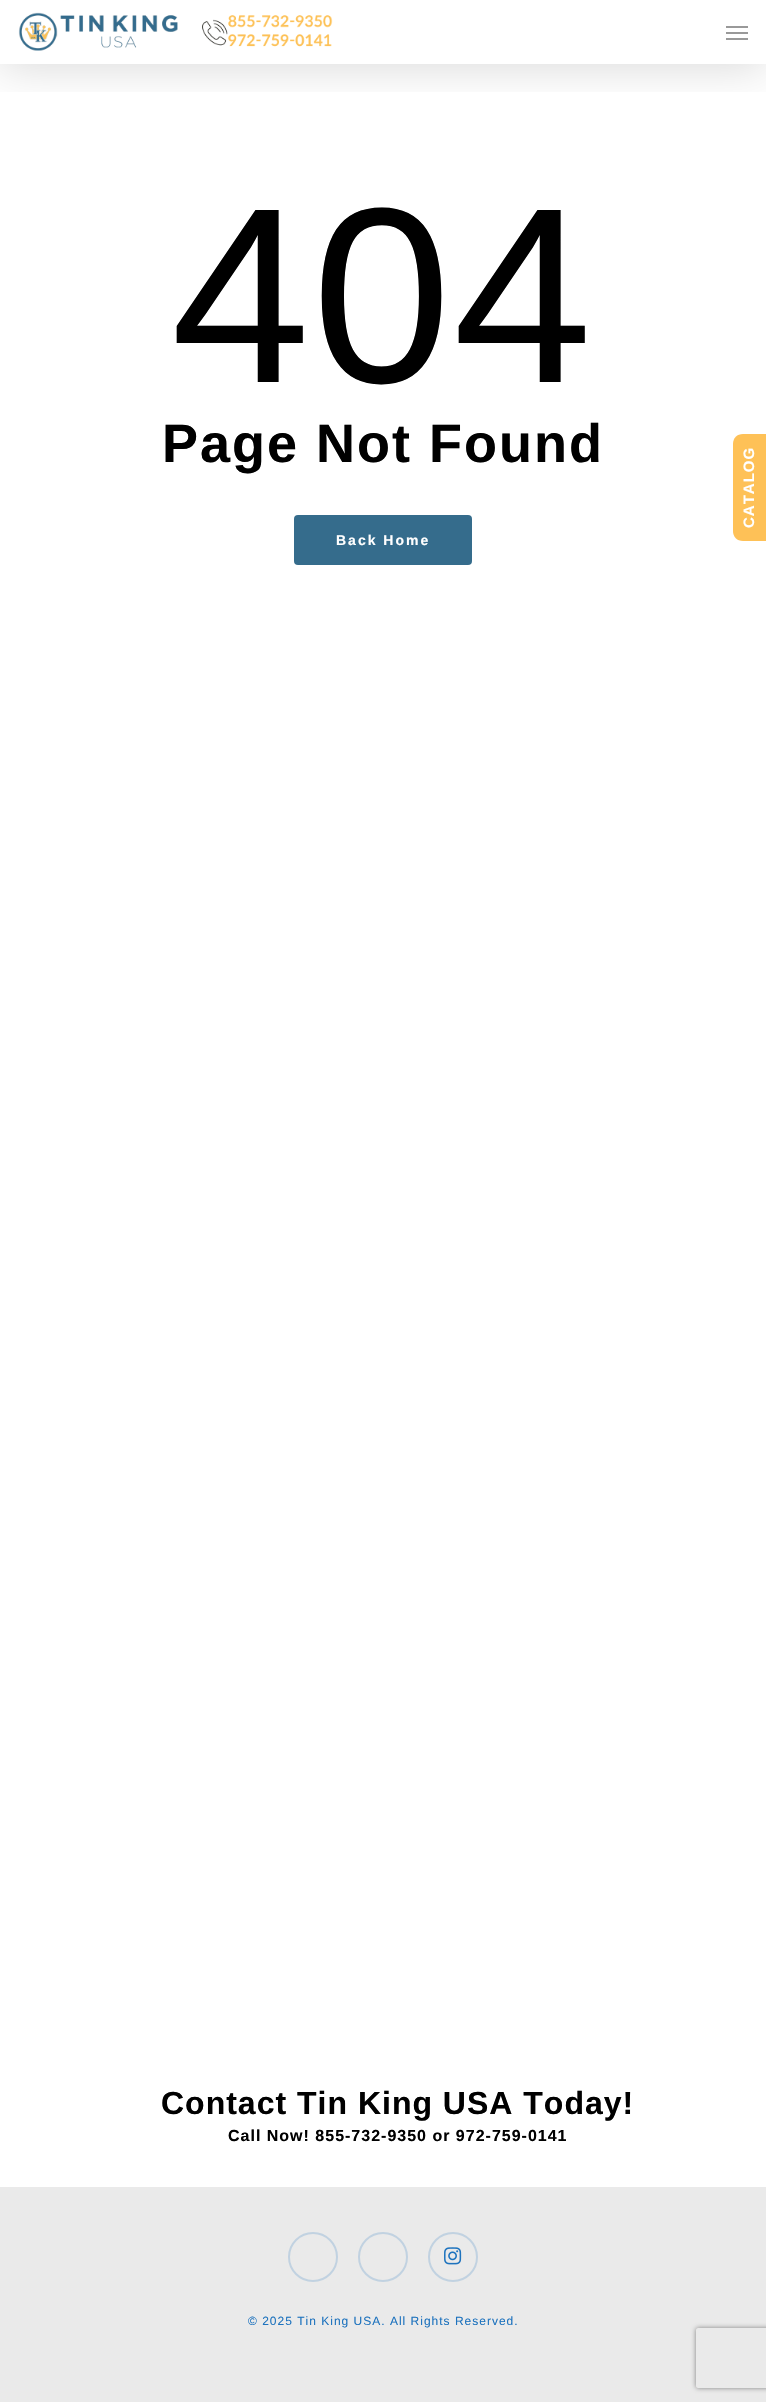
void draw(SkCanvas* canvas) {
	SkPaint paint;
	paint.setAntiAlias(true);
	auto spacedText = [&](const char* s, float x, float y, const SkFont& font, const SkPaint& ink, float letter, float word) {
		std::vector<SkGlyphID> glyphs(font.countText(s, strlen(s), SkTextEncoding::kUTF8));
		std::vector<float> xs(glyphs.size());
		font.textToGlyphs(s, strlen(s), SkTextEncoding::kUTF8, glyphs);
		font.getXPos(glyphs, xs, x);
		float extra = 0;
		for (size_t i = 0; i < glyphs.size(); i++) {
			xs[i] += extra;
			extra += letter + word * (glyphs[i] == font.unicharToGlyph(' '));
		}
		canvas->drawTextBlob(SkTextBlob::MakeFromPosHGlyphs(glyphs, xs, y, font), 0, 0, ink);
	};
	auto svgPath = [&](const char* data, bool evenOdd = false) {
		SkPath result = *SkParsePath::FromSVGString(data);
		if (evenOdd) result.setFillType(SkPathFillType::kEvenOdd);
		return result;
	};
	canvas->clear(0xffffffff);
	canvas->save();
	canvas->clipRect(SkRect::MakeXYWH(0, 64, 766, 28));
	paint.setColor(0x26000000);
	paint.setMaskFilter(SkMaskFilter::MakeBlur(kNormal_SkBlurStyle, 22.5));
	canvas->drawRect(SkRect::MakeXYWH(0, 3, 766, 64), paint);
	paint.setMaskFilter(nullptr);
	canvas->restore();
	canvas->drawImageRect(SkImages::DeferredFromEncodedData(SkData::MakeFromFileName("img1.png")), SkRect::MakeXYWH(18, 12, 315, 39), SkSamplingOptions());
	paint.setColor(0xff999999);
	canvas->drawRect(SkRect::MakeXYWH(726, 26, 22, 2), paint);
	canvas->drawRect(SkRect::MakeXYWH(726, 38, 22, 2), paint);
	canvas->drawRect(SkRect::MakeXYWH(726, 32, 22, 2), paint);
	SkFont f1(fontMgr->matchFamilyStyle("Liberation Sans", SkFontStyle::Normal()), 250);
	f1.setSubpixel(true);
	paint.setColor(0xff000000);
	spacedText("404", 171, 382, f1, paint, 2, 0);
	SkFont f2(fontMgr->matchFamilyStyle("Liberation Sans", SkFontStyle::Bold()), 54);
	f2.setSubpixel(true);
	spacedText("Page Not Found", 162, 462, f2, paint, 2, 0);
	paint.setColor(0xff356c8c);
	canvas->drawRoundRect(SkRect::MakeXYWH(294, 515, 178, 50), 4, 4, paint);
	SkFont f3(fontMgr->matchFamilyStyle("Liberation Sans", SkFontStyle::Bold()), 14);
	f3.setSubpixel(true);
	paint.setColor(0xffffffff);
	spacedText("Back Home", 336, 545, f3, paint, 2, 0);
	SkFont f4(fontMgr->matchFamilyStyle("Liberation Sans", SkFontStyle::Bold()), 32);
	f4.setSubpixel(true);
	paint.setColor(0xff000000);
	spacedText("Contact Tin King USA Today!", 161, 2114, f4, paint, 1, 0);
	SkFont f5(fontMgr->matchFamilyStyle("Liberation Sans", SkFontStyle::Bold()), 16);
	f5.setSubpixel(true);
	spacedText("Call Now! 855-732-9350 or 972-759-0141", 228, 2141, f5, paint, 1, 0);
	paint.setColor(0xffeaeaea);
	canvas->drawRect(SkRect::MakeXYWH(0, 2187, 766, 215), paint);
	paint.setStroke(true);
	paint.setStrokeWidth(2);
	paint.setColor(0xffc1d2e1);
	canvas->drawCircle(313, 2257, 24, paint);
	canvas->drawCircle(383, 2257, 24, paint);
	canvas->drawImageRect(SkImages::DeferredFromEncodedData(SkData::MakeFromFileName("img2.png")), SkRect::MakeXYWH(444, 2247, 18, 18), SkSamplingOptions());
	canvas->drawCircle(453, 2257, 24, paint);
	SkFont f6(fontMgr->matchFamilyStyle("Liberation Sans", SkFontStyle::Normal()), 12);
	f6.setSubpixel(true);
	paint.setStroke(false);
	paint.setColor(0xff1e73be);
	spacedText("© 2025 Tin King USA. All Rights Reserved.", 248, 2325, f6, paint, 1, 0);
	paint.setColor(0xfffec157);
	canvas->drawPath(svgPath("M733 531V444C733 438 737 434 743 434H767V541H743C737 541 733 537 733 531Z"), paint);
	SkFont f7(fontMgr->matchFamilyStyle("Liberation Sans", SkFontStyle::Bold()), 15);
	f7.setSubpixel(true);
	paint.setColor(0xffffffff);
	canvas->save();
	canvas->rotate(-90, 754, 528);
	spacedText("CATALOG", 754, 528, f7, paint, 1, 0);
	canvas->restore();
	canvas->save();
	canvas->clipPath(svgPath("M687 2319H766V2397H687ZM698 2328H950C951 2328 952 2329 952 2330V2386C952 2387 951 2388 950 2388H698C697 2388 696 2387 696 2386V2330C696 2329 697 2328 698 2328Z", true), true);
	paint.setColor(0xff808080);
	paint.setMaskFilter(SkMaskFilter::MakeBlur(kNormal_SkBlurStyle, 2.5));
	canvas->drawRoundRect(SkRect::MakeXYWH(696, 2328, 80, 60), 2, 2, paint);
	paint.setMaskFilter(nullptr);
	canvas->restore();
}
